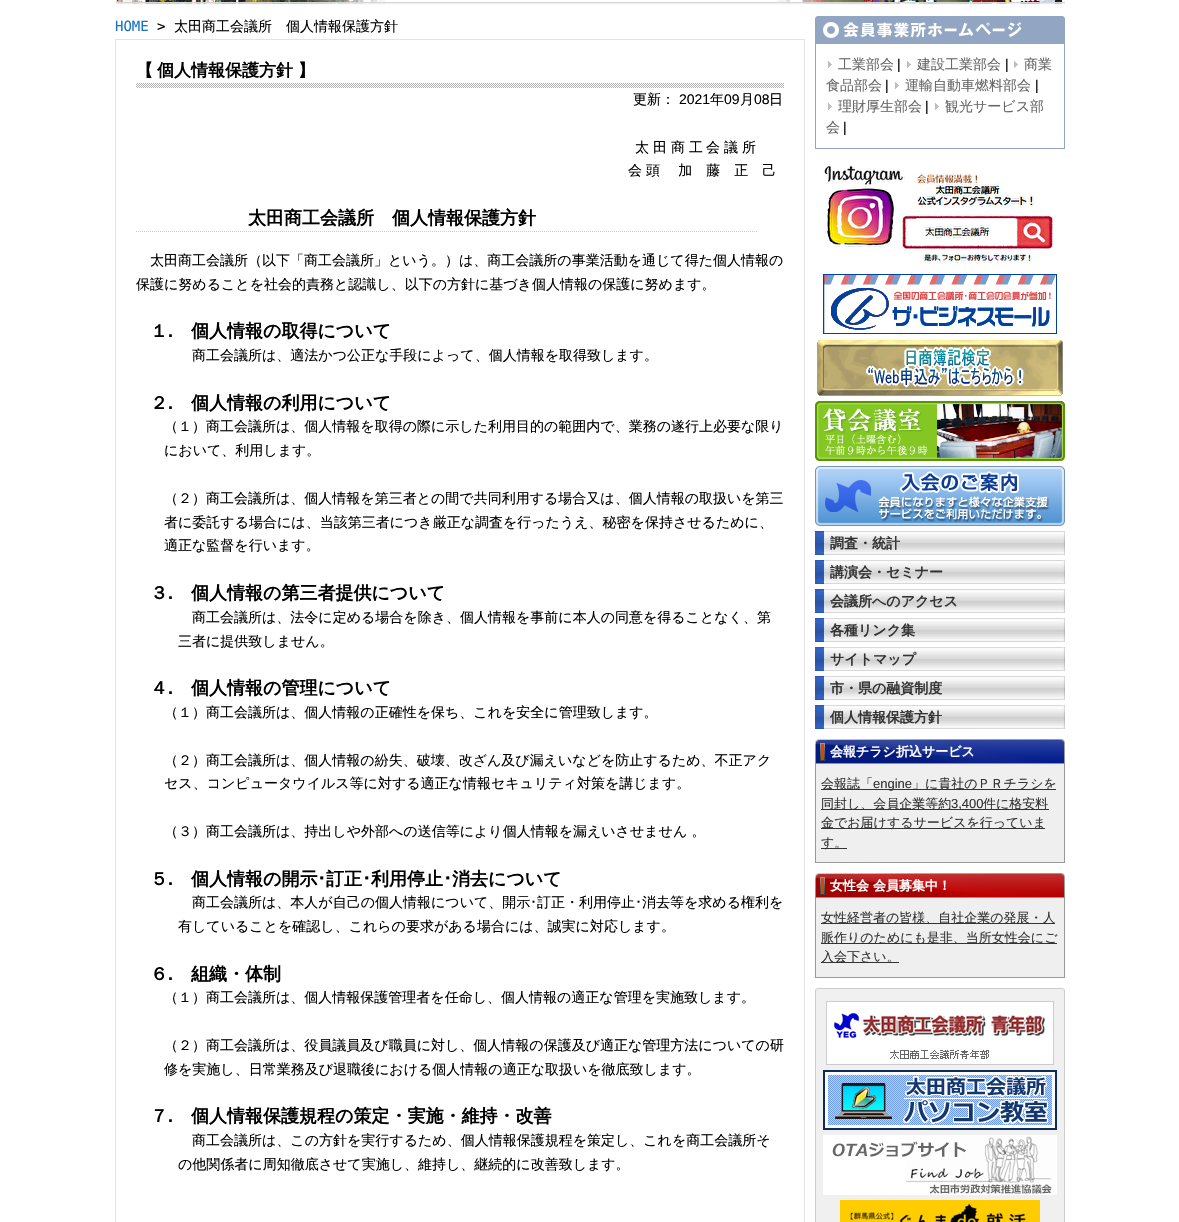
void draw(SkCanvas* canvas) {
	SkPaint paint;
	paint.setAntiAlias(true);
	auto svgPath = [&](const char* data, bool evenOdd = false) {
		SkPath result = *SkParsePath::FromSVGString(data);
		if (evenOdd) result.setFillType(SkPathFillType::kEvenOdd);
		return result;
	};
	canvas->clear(0xffffffff);
	canvas->drawImageRect(SkImages::DeferredFromEncodedData(SkData::MakeFromFileName("img1.png")), SkRect::MakeXYWH(116, 0, 949, 6), SkSamplingOptions());
	SkFont f1(fontMgr->matchFamilyStyle("DejaVu Sans Mono", SkFontStyle::Normal()), 14);
	f1.setSubpixel(true);
	paint.setColor(0xff1a75c0);
	canvas->drawString("HOME", 115, 31, f1, paint);
	paint.setColor(0xff000000);
	canvas->drawString(">", 157, 31, f1, paint);
	SkFont f2(fontMgr->matchFamilyStyle("WenQuanYi Zen Hei", SkFontStyle(500, SkFontStyle::kNormal_Width, SkFontStyle::kUpright_Slant)), 14);
	f2.setSubpixel(true);
	canvas->drawString("太田商工会議所　個人情報保護方針", 174, 31, f2, paint);
	paint.setStroke(true);
	paint.setStrokeWidth(1);
	paint.setColor(0xffe3e3e3);
	canvas->drawRect(SkRect::MakeXYWH(115.5, 39.5, 689, 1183), paint);
	canvas->drawImageRect(SkImages::DeferredFromEncodedData(SkData::MakeFromFileName("img2.png")), SkRect::MakeXYWH(136, 83, 648, 5), SkSamplingOptions());
	SkFont f3(fontMgr->matchFamilyStyle("WenQuanYi Zen Hei", SkFontStyle::Bold()), 17);
	f3.setSubpixel(true);
	paint.setStroke(false);
	paint.setColor(0xff000000);
	canvas->drawString("【", 136, 76, f3, paint);
	canvas->drawString("個人情報保護方針", 157, 76, f3, paint);
	canvas->drawString("】", 298, 76, f3, paint);
	canvas->drawString("更新：", 633, 104, f2, paint);
	SkFont f4(fontMgr->matchFamilyStyle("Liberation Sans", SkFontStyle::Normal()), 14);
	f4.setSubpixel(true);
	canvas->drawString("2021", 679, 104, f4, paint);
	canvas->drawString("年", 710, 104, f2, paint);
	canvas->drawString("09", 724, 104, f4, paint);
	canvas->drawString("月", 740, 104, f2, paint);
	canvas->drawString("08", 754, 104, f4, paint);
	canvas->drawString("日", 769, 104, f2, paint);
	canvas->drawString("太", 635, 152, f2, paint);
	canvas->drawString("田", 653, 152, f2, paint);
	canvas->drawString("商", 671, 152, f2, paint);
	canvas->drawString("工", 689, 152, f2, paint);
	canvas->drawString("会", 706, 152, f2, paint);
	canvas->drawString("議", 724, 152, f2, paint);
	canvas->drawString("所", 742, 152, f2, paint);
	canvas->drawString("会", 628, 175, f2, paint);
	canvas->drawString("頭　 加　藤　正　己", 646, 175, f2, paint);
	paint.setStroke(true);
	paint.setColor(0xffcccccc);
	paint.setPathEffect(SkDashPathEffect::Make({{1, 1}}, 0));
	canvas->drawPath(svgPath("M136 231.5H758"), paint);
	paint.setPathEffect(nullptr);
	SkFont f5(fontMgr->matchFamilyStyle("WenQuanYi Zen Hei", SkFontStyle::Bold()), 18);
	f5.setSubpixel(true);
	paint.setStroke(false);
	paint.setColor(0xff000000);
	canvas->drawString("太田商工会議所　個人情報保護方針", 248, 224, f5, paint);
	canvas->drawString("太田商工会議所（以下「商工会議所」という。）は、商工会議所の事業活動を通じて得た個人情報の", 150, 265, f2, paint);
	canvas->drawString("保護に努めることを社会的責務と認識し、以下の方針に基づき個人情報の保護に努めます。", 136, 289, f2, paint);
	canvas->drawString("１", 150, 337, f5, paint);
	SkFont f6(fontMgr->matchFamilyStyle("Liberation Sans", SkFontStyle::Bold()), 18);
	f6.setSubpixel(true);
	canvas->drawString(".", 168, 337, f6, paint);
	canvas->drawString("個人情報の取得について", 191, 337, f5, paint);
	canvas->drawString("商工会議所は、適法かつ公正な手段によって、個人情報を取得致します。", 192, 360, f2, paint);
	canvas->drawString("２", 150, 409, f5, paint);
	canvas->drawString(".", 168, 409, f6, paint);
	canvas->drawString("個人情報の利用について", 191, 409, f5, paint);
	canvas->drawString("（１）商工会議所は、個人情報を取得の際に示した利用目的の範囲内で、業務の遂行上必要な限り", 164, 431, f2, paint);
	canvas->drawString("において、利用します。", 164, 455, f2, paint);
	canvas->drawString("（２）商工会議所は、個人情報を第三者との間で共同利用する場合又は、個人情報の取扱いを第三", 164, 503, f2, paint);
	canvas->drawString("者に委託する場合には、当該第三者につき厳正な調査を行ったうえ、秘密を保持させるために、", 164, 527, f2, paint);
	canvas->drawString("適正な監督を行います。", 164, 550, f2, paint);
	canvas->drawString("３", 150, 599, f5, paint);
	canvas->drawString(".", 168, 599, f6, paint);
	canvas->drawString("個人情報の第三者提供について", 191, 599, f5, paint);
	canvas->drawString("商工会議所は、法令に定める場合を除き、個人情報を事前に本人の同意を得ることなく、第", 192, 622, f2, paint);
	canvas->drawString("三者に提供致しません。", 178, 646, f2, paint);
	canvas->drawString("４", 150, 694, f5, paint);
	canvas->drawString(".", 168, 694, f6, paint);
	canvas->drawString("個人情報の管理について", 191, 694, f5, paint);
	canvas->drawString("（１）商工会議所は、個人情報の正確性を保ち、これを安全に管理致します。", 164, 717, f2, paint);
	canvas->drawString("（２）商工会議所は、個人情報の紛失、破壊、改ざん及び漏えいなどを防止するため、不正アク", 164, 765, f2, paint);
	canvas->drawString("セス、コンピュータウイルス等に対する適正な情報セキュリティ対策を講じます。", 164, 788, f2, paint);
	canvas->drawString("（３）商工会議所は、持出しや外部への送信等により個人情報を漏えいさせません 。", 164, 836, f2, paint);
	canvas->drawString("５", 150, 885, f5, paint);
	canvas->drawString("個人情報の開示", 191, 885, f5, paint);
	SkFont f7(fontMgr->matchFamilyStyle("IPAGothic", SkFontStyle::Bold()), 18);
	f7.setSubpixel(true);
	canvas->drawString("･", 317, 885, f7, paint);
	canvas->drawString("訂正", 326, 885, f5, paint);
	canvas->drawString("･", 362, 885, f7, paint);
	canvas->drawString("利用停止", 371, 885, f5, paint);
	canvas->drawString("･", 443, 885, f7, paint);
	canvas->drawString("消去について", 452, 885, f5, paint);
	canvas->drawString(".", 168, 885, f6, paint);
	canvas->drawString("商工会議所は、本人が自己の個人情報について、開示", 192, 907, f2, paint);
	SkFont f8(fontMgr->matchFamilyStyle("IPAGothic", SkFontStyle::Normal()), 14);
	f8.setSubpixel(true);
	canvas->drawString("･", 530, 907, f8, paint);
	canvas->drawString("訂正・利用停止", 537, 907, f2, paint);
	canvas->drawString("･", 635, 907, f8, paint);
	canvas->drawString("消去等を求める権利を", 642, 907, f2, paint);
	canvas->drawString("有していることを確認し、これらの要求がある場合には、誠実に対応します。", 178, 931, f2, paint);
	canvas->drawString("６", 150, 980, f5, paint);
	canvas->drawString(".", 168, 980, f6, paint);
	canvas->drawString("組織・体制", 191, 980, f5, paint);
	canvas->drawString("（１）商工会議所は、個人情報保護管理者を任命し、個人情報の適正な管理を実施致します。", 164, 1002, f2, paint);
	canvas->drawString("（２）商工会議所は、役員議員及び職員に対し、個人情報の保護及び適正な管理方法についての研", 164, 1050, f2, paint);
	canvas->drawString("修を実施し、日常業務及び退職後における個人情報の適正な取扱いを徹底致します。", 164, 1074, f2, paint);
	canvas->drawString("７", 150, 1122, f5, paint);
	canvas->drawString(".", 168, 1122, f6, paint);
	canvas->drawString("個人情報保護規程の策定・実施・維持・改善", 191, 1122, f5, paint);
	canvas->drawString("商工会議所は、この方針を実行するため、個人情報保護規程を策定し、これを商工会議所そ", 192, 1145, f2, paint);
	canvas->drawString("の他関係者に周知徹底させて実施し、維持し、継続的に改善致します。", 178, 1169, f2, paint);
	canvas->drawImageRect(SkImages::DeferredFromEncodedData(SkData::MakeFromFileName("img3.png")), SkRect::MakeXYWH(815, 16, 250, 28), SkSamplingOptions());
	paint.setColor(0xff92a5c2);
	canvas->drawRect(SkRect::MakeXYWH(1064, 44, 1, 105), paint);
	canvas->drawRect(SkRect::MakeXYWH(815, 148, 250, 1), paint);
	canvas->drawRect(SkRect::MakeXYWH(815, 44, 1, 105), paint);
	canvas->drawImageRect(SkImages::DeferredFromEncodedData(SkData::MakeFromFileName("img4.png")), SkRect::MakeXYWH(828, 61, 4, 7), SkSamplingOptions());
	paint.setColor(0xff666666);
	canvas->drawString("工業部会", 838, 69, f2, paint);
	paint.setColor(0xff000000);
	canvas->drawString("|", 897, 69, f4, paint);
	canvas->drawImageRect(SkImages::DeferredFromEncodedData(SkData::MakeFromFileName("img4.png")), SkRect::MakeXYWH(907, 61, 4, 7), SkSamplingOptions());
	paint.setColor(0xff666666);
	canvas->drawString("建設工業部会", 917, 69, f2, paint);
	paint.setColor(0xff000000);
	canvas->drawString("|", 1005, 69, f4, paint);
	canvas->drawImageRect(SkImages::DeferredFromEncodedData(SkData::MakeFromFileName("img4.png")), SkRect::MakeXYWH(1014, 61, 4, 7), SkSamplingOptions());
	paint.setColor(0xff666666);
	canvas->drawString("商業", 1024, 69, f2, paint);
	canvas->drawString("食品部会", 826, 90, f2, paint);
	paint.setColor(0xff000000);
	canvas->drawString("|", 885, 90, f4, paint);
	canvas->drawImageRect(SkImages::DeferredFromEncodedData(SkData::MakeFromFileName("img4.png")), SkRect::MakeXYWH(895, 82, 4, 7), SkSamplingOptions());
	paint.setColor(0xff666666);
	canvas->drawString("運輸自動車燃料部会", 905, 90, f2, paint);
	paint.setColor(0xff000000);
	canvas->drawString("|", 1035, 90, f4, paint);
	canvas->drawImageRect(SkImages::DeferredFromEncodedData(SkData::MakeFromFileName("img4.png")), SkRect::MakeXYWH(828, 103, 4, 7), SkSamplingOptions());
	paint.setColor(0xff666666);
	canvas->drawString("理財厚生部会", 838, 111, f2, paint);
	paint.setColor(0xff000000);
	canvas->drawString("|", 925, 111, f4, paint);
	canvas->drawImageRect(SkImages::DeferredFromEncodedData(SkData::MakeFromFileName("img4.png")), SkRect::MakeXYWH(935, 103, 4, 7), SkSamplingOptions());
	paint.setColor(0xff666666);
	canvas->drawString("観光サービス部", 945, 111, f2, paint);
	canvas->drawString("会", 826, 132, f2, paint);
	paint.setColor(0xff000000);
	canvas->drawString("|", 843, 132, f4, paint);
	canvas->drawImageRect(SkImages::DeferredFromEncodedData(SkData::MakeFromFileName("img5.png")), SkRect::MakeXYWH(823, 164, 234, 100), SkSamplingOptions());
	canvas->drawImageRect(SkImages::DeferredFromEncodedData(SkData::MakeFromFileName("img6.png")), SkRect::MakeXYWH(823, 274, 234, 60), SkSamplingOptions());
	canvas->drawImageRect(SkImages::DeferredFromEncodedData(SkData::MakeFromFileName("img7.png")), SkRect::MakeXYWH(817, 340, 246, 56), SkSamplingOptions());
	canvas->drawImageRect(SkImages::DeferredFromEncodedData(SkData::MakeFromFileName("img8.png")), SkRect::MakeXYWH(815, 401, 250, 60), SkSamplingOptions());
	canvas->drawImageRect(SkImages::DeferredFromEncodedData(SkData::MakeFromFileName("img9.png")), SkRect::MakeXYWH(815, 466, 250, 60), SkSamplingOptions());
	canvas->drawImageRect(SkImages::DeferredFromEncodedData(SkData::MakeFromFileName("img10.png")), SkRect::MakeXYWH(815, 531, 250, 24), SkSamplingOptions());
	SkFont f9(fontMgr->matchFamilyStyle("WenQuanYi Zen Hei", SkFontStyle::Bold()), 14);
	f9.setSubpixel(true);
	paint.setColor(0xff333333);
	canvas->drawString("調査・統計", 830, 548, f9, paint);
	canvas->drawImageRect(SkImages::DeferredFromEncodedData(SkData::MakeFromFileName("img10.png")), SkRect::MakeXYWH(815, 560, 250, 24), SkSamplingOptions());
	canvas->drawString("講演会・セミナー", 830, 577, f9, paint);
	canvas->drawImageRect(SkImages::DeferredFromEncodedData(SkData::MakeFromFileName("img10.png")), SkRect::MakeXYWH(815, 589, 250, 24), SkSamplingOptions());
	canvas->drawString("会議所へのアクセス", 830, 606, f9, paint);
	canvas->drawImageRect(SkImages::DeferredFromEncodedData(SkData::MakeFromFileName("img10.png")), SkRect::MakeXYWH(815, 618, 250, 24), SkSamplingOptions());
	canvas->drawString("各種リンク集", 830, 635, f9, paint);
	canvas->drawImageRect(SkImages::DeferredFromEncodedData(SkData::MakeFromFileName("img10.png")), SkRect::MakeXYWH(815, 647, 250, 24), SkSamplingOptions());
	canvas->drawString("サイトマップ", 830, 664, f9, paint);
	canvas->drawImageRect(SkImages::DeferredFromEncodedData(SkData::MakeFromFileName("img10.png")), SkRect::MakeXYWH(815, 676, 250, 24), SkSamplingOptions());
	canvas->drawString("市・県の融資制度", 830, 693, f9, paint);
	canvas->drawImageRect(SkImages::DeferredFromEncodedData(SkData::MakeFromFileName("img10.png")), SkRect::MakeXYWH(815, 705, 250, 24), SkSamplingOptions());
	canvas->drawString("個人情報保護方針", 830, 722, f9, paint);
	canvas->drawImageRect(SkImages::DeferredFromEncodedData(SkData::MakeFromFileName("img11.png")), SkRect::MakeXYWH(815, 739, 250, 25), SkSamplingOptions());
	SkFont f10(fontMgr->matchFamilyStyle("WenQuanYi Zen Hei", SkFontStyle::Bold()), 13);
	f10.setSubpixel(true);
	paint.setColor(0xffffffff);
	canvas->drawString("会報チラシ折込サービス", 830, 756, f10, paint);
	paint.setColor(0xffefefef);
	canvas->drawRect(SkRect::MakeXYWH(816, 764, 248, 98), paint);
	paint.setColor(0xff999999);
	canvas->drawRect(SkRect::MakeXYWH(1064, 764, 1, 99), paint);
	canvas->drawRect(SkRect::MakeXYWH(815, 862, 250, 1), paint);
	canvas->drawRect(SkRect::MakeXYWH(815, 764, 1, 99), paint);
	paint.setColor(0xff333333);
	canvas->drawRect(SkRect::MakeXYWH(821, 789, 235, 1), paint);
	SkFont f11(fontMgr->matchFamilyStyle("WenQuanYi Zen Hei", SkFontStyle(500, SkFontStyle::kNormal_Width, SkFontStyle::kUpright_Slant)), 13);
	f11.setSubpixel(true);
	canvas->drawString("会報誌「", 821, 788, f11, paint);
	SkFont f12(fontMgr->matchFamilyStyle("Liberation Sans", SkFontStyle::Normal()), 13);
	f12.setSubpixel(true);
	canvas->drawString("engine", 873, 788, f12, paint);
	canvas->drawString("」に貴社のＰＲチラシを", 912, 788, f11, paint);
	canvas->drawRect(SkRect::MakeXYWH(821, 809, 228, 1), paint);
	canvas->drawString("同封し、会員企業等約", 821, 808, f11, paint);
	canvas->drawString("3,400", 951, 808, f12, paint);
	canvas->drawString("件に格安料", 983, 808, f11, paint);
	canvas->drawRect(SkRect::MakeXYWH(821, 828, 224, 1), paint);
	canvas->drawString("金でお届けするサービスを行っていま", 821, 827, f11, paint);
	canvas->drawRect(SkRect::MakeXYWH(821, 848, 26, 1), paint);
	canvas->drawString("す。", 821, 847, f11, paint);
	canvas->drawImageRect(SkImages::DeferredFromEncodedData(SkData::MakeFromFileName("img12.png")), SkRect::MakeXYWH(815, 873, 250, 25), SkSamplingOptions());
	paint.setColor(0xffffffff);
	canvas->drawString("女性会 会員募集中！", 830, 890, f10, paint);
	paint.setColor(0xffefefef);
	canvas->drawRect(SkRect::MakeXYWH(816, 898, 248, 79), paint);
	paint.setColor(0xff999999);
	canvas->drawRect(SkRect::MakeXYWH(1064, 898, 1, 80), paint);
	canvas->drawRect(SkRect::MakeXYWH(815, 977, 250, 1), paint);
	canvas->drawRect(SkRect::MakeXYWH(815, 898, 1, 80), paint);
	paint.setColor(0xff333333);
	canvas->drawRect(SkRect::MakeXYWH(821, 923, 234, 1), paint);
	canvas->drawString("女性経営者の皆様、自社企業の発展・人", 821, 922, f11, paint);
	canvas->drawRect(SkRect::MakeXYWH(821, 943, 236, 1), paint);
	canvas->drawString("脈作りのためにも是非、当所女性会にご", 821, 942, f11, paint);
	canvas->drawRect(SkRect::MakeXYWH(821, 962, 78, 1), paint);
	canvas->drawString("入会下さい。", 821, 961, f11, paint);
	canvas->drawImageRect(SkImages::DeferredFromEncodedData(SkData::MakeFromFileName("img13.png")), SkRect::MakeXYWH(815, 988, 250, 8), SkSamplingOptions());
	paint.setColor(0xfff0f0f0);
	canvas->drawRect(SkRect::MakeXYWH(816, 996, 248, 226), paint);
	paint.setColor(0xffcccccc);
	canvas->drawRect(SkRect::MakeXYWH(1064, 996, 1, 226), paint);
	canvas->drawRect(SkRect::MakeXYWH(815, 996, 1, 226), paint);
	canvas->drawImageRect(SkImages::DeferredFromEncodedData(SkData::MakeFromFileName("img14.png")), SkRect::MakeXYWH(826, 1001, 228, 64), SkSamplingOptions());
	canvas->drawImageRect(SkImages::DeferredFromEncodedData(SkData::MakeFromFileName("img15.png")), SkRect::MakeXYWH(823, 1070, 234, 60), SkSamplingOptions());
	canvas->drawImageRect(SkImages::DeferredFromEncodedData(SkData::MakeFromFileName("img16.png")), SkRect::MakeXYWH(823, 1135, 234, 60), SkSamplingOptions());
	canvas->drawImageRect(SkImages::DeferredFromEncodedData(SkData::MakeFromFileName("img17.png")), SkRect::MakeXYWH(840, 1200, 200, 22), SkSamplingOptions());
}
